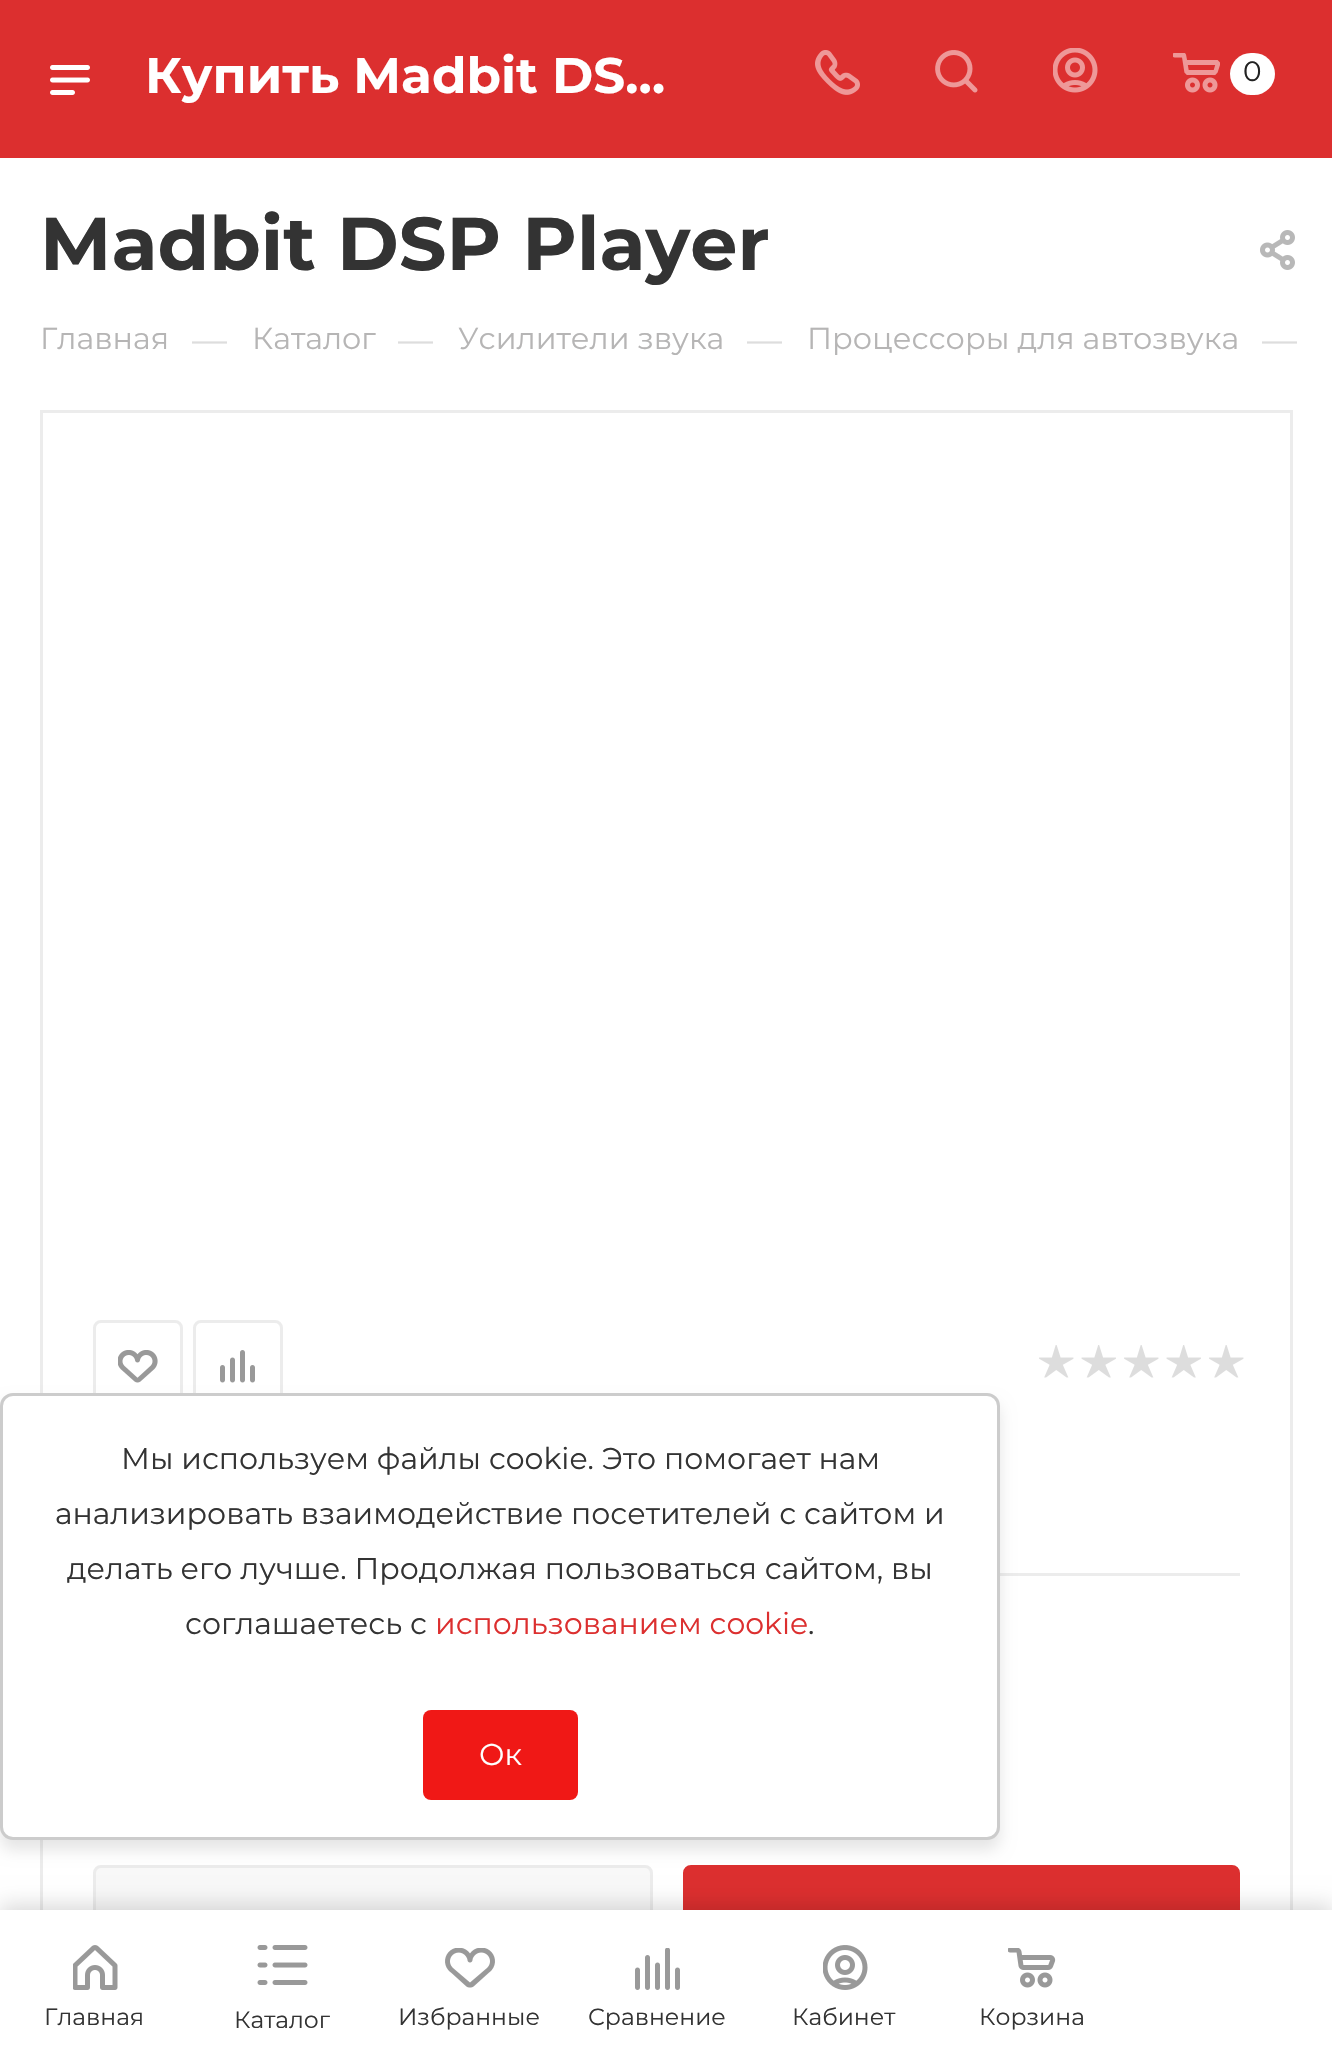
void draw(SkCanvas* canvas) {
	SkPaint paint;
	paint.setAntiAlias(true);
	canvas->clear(0xffffffff);
	paint.setColor(0xffdc2f2f);
	canvas->drawRect(SkRect::MakeXYWH(0, 0, 1332, 158), paint);
	canvas->drawImageRect(SkImages::DeferredFromEncodedData(SkData::MakeFromFileName("img1.png")), SkRect::MakeXYWH(50, 65, 40, 30), SkSamplingOptions());
	SkFont f1(fontMgr->matchFamilyStyle("Montserrat", SkFontStyle::Bold()), 50);
	f1.setSubpixel(true);
	paint.setColor(0xffffffff);
	canvas->drawString("Купить Madbit DS…", 145, 93, f1, paint);
	canvas->drawImageRect(SkImages::DeferredFromEncodedData(SkData::MakeFromFileName("img2.png")), SkRect::MakeXYWH(815, 50, 45, 45), SkSamplingOptions());
	canvas->drawImageRect(SkImages::DeferredFromEncodedData(SkData::MakeFromFileName("img3.png")), SkRect::MakeXYWH(935, 50, 43, 43), SkSamplingOptions());
	canvas->drawImageRect(SkImages::DeferredFromEncodedData(SkData::MakeFromFileName("img4.png")), SkRect::MakeXYWH(1053, 48, 45, 45), SkSamplingOptions());
	canvas->drawImageRect(SkImages::DeferredFromEncodedData(SkData::MakeFromFileName("img5.png")), SkRect::MakeXYWH(1173, 53, 47, 40), SkSamplingOptions());
	canvas->drawRoundRect(SkRect::MakeXYWH(1230, 53, 45, 42), 21, 21, paint);
	SkFont f2(fontMgr->matchFamilyStyle("Montserrat", SkFontStyle::Normal()), 28);
	f2.setSubpixel(true);
	paint.setColor(0xff222222);
	canvas->drawString("0", 1243, 81, f2, paint);
	SkFont f3(fontMgr->matchFamilyStyle("Montserrat", SkFontStyle::Bold()), 74.75);
	f3.setSubpixel(true);
	paint.setColor(0xff333333);
	canvas->drawString("Madbit DSP Player", 40, 270, f3, paint);
	canvas->drawImageRect(SkImages::DeferredFromEncodedData(SkData::MakeFromFileName("img6.png")), SkRect::MakeXYWH(1260, 230, 35, 40), SkSamplingOptions());
	SkFont f4(fontMgr->matchFamilyStyle("Montserrat", SkFontStyle::Normal()), 30.3);
	f4.setSubpixel(true);
	paint.setColor(0xffb6b5b5);
	canvas->drawString("Главная", 40, 349, f4, paint);
	SkFont f5(fontMgr->matchFamilyStyle("Montserrat", SkFontStyle::Normal()), 35);
	f5.setSubpixel(true);
	paint.setColor(0xffdddddd);
	canvas->drawString("—", 192, 352, f5, paint);
	paint.setColor(0xffb6b5b5);
	canvas->drawString("Каталог", 252, 349, f4, paint);
	paint.setColor(0xffdddddd);
	canvas->drawString("—", 398, 352, f5, paint);
	paint.setColor(0xffb6b5b5);
	canvas->drawString("Усилители звука", 458, 349, f4, paint);
	paint.setColor(0xffdddddd);
	canvas->drawString("—", 747, 352, f5, paint);
	paint.setColor(0xffb6b5b5);
	canvas->drawString("Процессоры для автозвука", 807, 349, f4, paint);
	paint.setColor(0xffdddddd);
	canvas->drawString("—", 1262, 352, f5, paint);
	paint.setStroke(true);
	paint.setStrokeWidth(3);
	paint.setColor(0xffececec);
	canvas->drawRect(SkRect::MakeXYWH(41.5, 411.5, 1250, 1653), paint);
	canvas->drawRoundRect(SkRect::MakeXYWH(94.5, 1321.5, 87, 87), 6.5, 6.5, paint);
	canvas->drawImageRect(SkImages::DeferredFromEncodedData(SkData::MakeFromFileName("img7.png")), SkRect::MakeXYWH(118, 1350, 40, 33), SkSamplingOptions());
	canvas->drawRoundRect(SkRect::MakeXYWH(194.5, 1321.5, 87, 87), 6.5, 6.5, paint);
	canvas->drawImageRect(SkImages::DeferredFromEncodedData(SkData::MakeFromFileName("img8.png")), SkRect::MakeXYWH(220, 1350, 35, 33), SkSamplingOptions());
	canvas->drawImageRect(SkImages::DeferredFromEncodedData(SkData::MakeFromFileName("img9.png")), SkRect::MakeXYWH(1039, 1345, 35, 33), SkSamplingOptions());
	canvas->drawImageRect(SkImages::DeferredFromEncodedData(SkData::MakeFromFileName("img10.png")), SkRect::MakeXYWH(1081, 1345, 35, 33), SkSamplingOptions());
	canvas->drawImageRect(SkImages::DeferredFromEncodedData(SkData::MakeFromFileName("img9.png")), SkRect::MakeXYWH(1124, 1345, 35, 33), SkSamplingOptions());
	canvas->drawImageRect(SkImages::DeferredFromEncodedData(SkData::MakeFromFileName("img10.png")), SkRect::MakeXYWH(1166, 1345, 35, 33), SkSamplingOptions());
	canvas->drawImageRect(SkImages::DeferredFromEncodedData(SkData::MakeFromFileName("img9.png")), SkRect::MakeXYWH(1209, 1345, 35, 33), SkSamplingOptions());
	paint.setStroke(false);
	canvas->drawRect(SkRect::MakeXYWH(1000, 1573, 240, 3), paint);
	paint.setColor(0xfff8f8f8);
	canvas->drawRoundRect(SkRect::MakeXYWH(94.5, 1866.5, 557, 117), 6.5, 6.5, paint);
	paint.setStroke(true);
	paint.setColor(0xffececec);
	canvas->drawRoundRect(SkRect::MakeXYWH(94.5, 1866.5, 557, 117), 6.5, 6.5, paint);
	paint.setStroke(false);
	paint.setColor(0xffdc2f2f);
	canvas->drawRoundRect(SkRect::MakeXYWH(684.5, 1866.5, 554, 117), 6.5, 6.5, paint);
	paint.setStroke(true);
	canvas->drawRoundRect(SkRect::MakeXYWH(684.5, 1866.5, 554, 117), 6.5, 6.5, paint);
	paint.setStroke(false);
	paint.setColor(0x1a000000);
	paint.setMaskFilter(SkMaskFilter::MakeBlur(kNormal_SkBlurStyle, 7.5));
	canvas->drawRoundRect(SkRect::MakeXYWH(0, 1403, 1000, 447), 13, 13, paint);
	paint.setMaskFilter(nullptr);
	paint.setColor(0xffffffff);
	canvas->drawRoundRect(SkRect::MakeXYWH(1.5, 1394.5, 997, 444), 11.5, 11.5, paint);
	paint.setStroke(true);
	paint.setColor(0xffcccccc);
	canvas->drawRoundRect(SkRect::MakeXYWH(1.5, 1394.5, 997, 444), 11.5, 11.5, paint);
	SkFont f6(fontMgr->matchFamilyStyle("Montserrat", SkFontStyle::Normal()), 30);
	f6.setSubpixel(true);
	paint.setStroke(false);
	paint.setColor(0xff333333);
	canvas->drawString("Мы используем файлы cookie. Это помогает нам", 121, 1469, f6, paint);
	canvas->drawString("анализировать взаимодействие посетителей с сайтом и", 55, 1524, f6, paint);
	canvas->drawString("делать его лучше. Продолжая пользоваться сайтом, вы", 67, 1579, f6, paint);
	canvas->drawString("соглашаетесь с", 185, 1634, f6, paint);
	paint.setColor(0xffdc2f2f);
	canvas->drawString("использованием cookie", 435, 1634, f6, paint);
	paint.setColor(0xff333333);
	canvas->drawString(".", 808, 1634, f6, paint);
	paint.setColor(0xfff01816);
	canvas->drawRoundRect(SkRect::MakeXYWH(423, 1710, 155, 90), 8, 8, paint);
	paint.setColor(0xffffffff);
	canvas->drawString("Ок", 479, 1765, f6, paint);
	paint.setColor(0x26000000);
	paint.setMaskFilter(SkMaskFilter::MakeBlur(kNormal_SkBlurStyle, 10));
	canvas->drawRect(SkRect::MakeXYWH(0, 1905, 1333, 155), paint);
	paint.setMaskFilter(nullptr);
	paint.setColor(0xffffffff);
	canvas->drawRect(SkRect::MakeXYWH(0, 1910, 1332, 153), paint);
	canvas->drawImageRect(SkImages::DeferredFromEncodedData(SkData::MakeFromFileName("img11.png")), SkRect::MakeXYWH(73, 1945, 45, 45), SkSamplingOptions());
	SkFont f7(fontMgr->matchFamilyStyle("Montserrat", SkFontStyle::Normal()), 23.5);
	f7.setSubpixel(true);
	paint.setColor(0xff333333);
	canvas->drawString("Главная", 44, 2025, f7, paint);
	canvas->drawImageRect(SkImages::DeferredFromEncodedData(SkData::MakeFromFileName("img12.png")), SkRect::MakeXYWH(257, 1945, 51, 40), SkSamplingOptions());
	canvas->drawString("Каталог", 234, 2028, f7, paint);
	canvas->drawImageRect(SkImages::DeferredFromEncodedData(SkData::MakeFromFileName("img13.png")), SkRect::MakeXYWH(445, 1948, 50, 40), SkSamplingOptions());
	canvas->drawString("Избранные", 398, 2025, f7, paint);
	canvas->drawImageRect(SkImages::DeferredFromEncodedData(SkData::MakeFromFileName("img14.png")), SkRect::MakeXYWH(635, 1948, 45, 42), SkSamplingOptions());
	canvas->drawString("Сравнение", 588, 2025, f7, paint);
	canvas->drawImageRect(SkImages::DeferredFromEncodedData(SkData::MakeFromFileName("img15.png")), SkRect::MakeXYWH(823, 1945, 45, 45), SkSamplingOptions());
	canvas->drawString("Кабинет", 792, 2025, f7, paint);
	canvas->drawImageRect(SkImages::DeferredFromEncodedData(SkData::MakeFromFileName("img16.png")), SkRect::MakeXYWH(1008, 1948, 48, 40), SkSamplingOptions());
	canvas->drawString("Корзина", 979, 2025, f7, paint);
}
